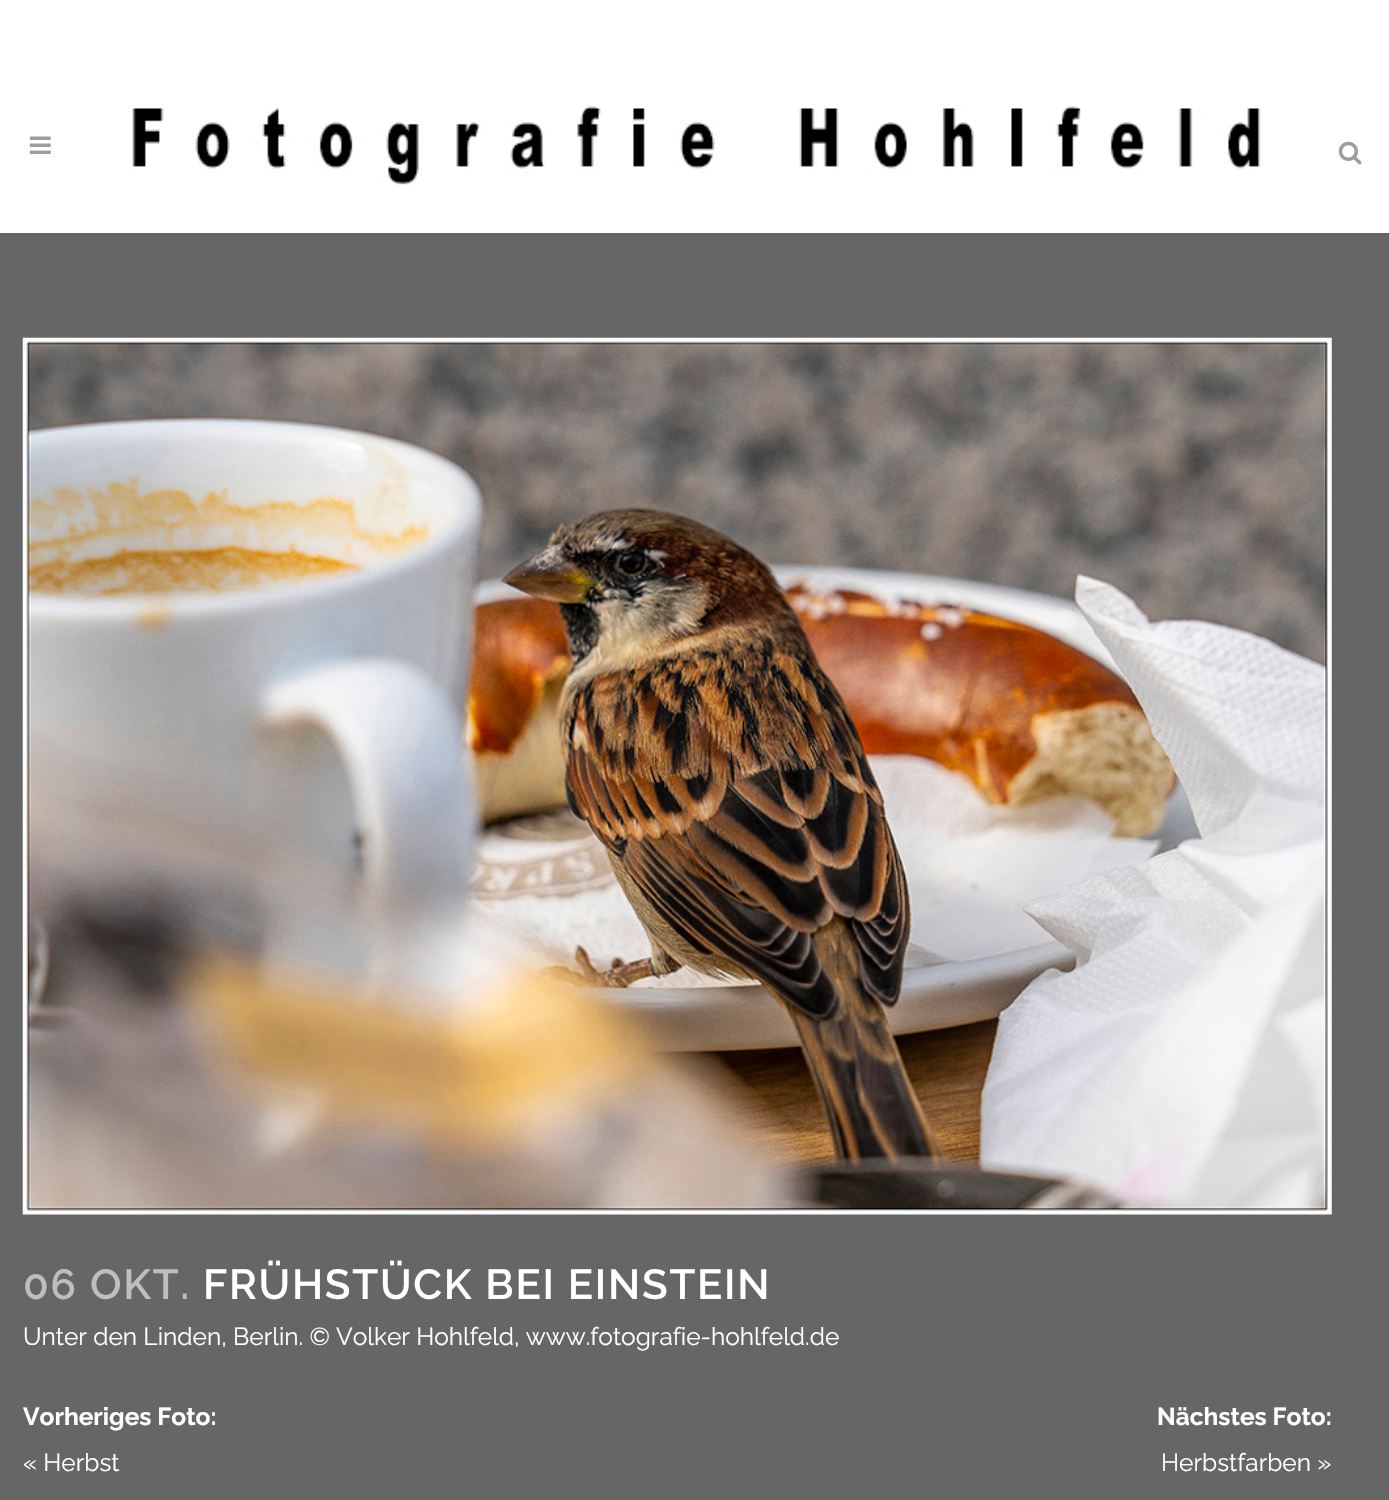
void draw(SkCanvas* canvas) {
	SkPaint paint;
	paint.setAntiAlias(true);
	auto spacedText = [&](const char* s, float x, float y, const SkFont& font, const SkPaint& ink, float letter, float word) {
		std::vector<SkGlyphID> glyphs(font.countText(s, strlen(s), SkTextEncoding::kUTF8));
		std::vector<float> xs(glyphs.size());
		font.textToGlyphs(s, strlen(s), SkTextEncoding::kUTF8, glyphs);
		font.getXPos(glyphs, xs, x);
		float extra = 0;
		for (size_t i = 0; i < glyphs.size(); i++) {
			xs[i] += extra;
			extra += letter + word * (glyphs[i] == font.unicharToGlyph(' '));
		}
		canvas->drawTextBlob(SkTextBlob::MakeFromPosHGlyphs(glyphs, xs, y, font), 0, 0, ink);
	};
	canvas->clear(0xff666666);
	paint.setColor(0xffffffff);
	canvas->drawRect(SkRect::MakeXYWH(0, 0, 1389, 233), paint);
	canvas->drawImageRect(SkImages::DeferredFromEncodedData(SkData::MakeFromFileName("img1.png")), SkRect::MakeXYWH(29, 136, 22, 18), SkSamplingOptions());
	canvas->drawImageRect(SkImages::DeferredFromEncodedData(SkData::MakeFromFileName("img2.png")), SkRect::MakeXYWH(132, 106, 1129, 79), SkSamplingOptions());
	canvas->drawImageRect(SkImages::DeferredFromEncodedData(SkData::MakeFromFileName("img3.png")), SkRect::MakeXYWH(1338, 141, 24, 24), SkSamplingOptions());
	canvas->drawImageRect(SkImages::DeferredFromEncodedData(SkData::MakeFromFileName("img4.png")), SkRect::MakeXYWH(22, 337, 1310, 878), SkSamplingOptions());
	SkFont f1(fontMgr->matchFamilyStyle("Raleway", SkFontStyle(600, SkFontStyle::kNormal_Width, SkFontStyle::kUpright_Slant)), 42);
	f1.setSubpixel(true);
	paint.setColor(0xffbebebe);
	spacedText("06 OKT.", 23, 1299, f1, paint, 1.75, 0);
	paint.setColor(0xffffffff);
	spacedText("FRÜHSTÜCK BEI EINSTEIN", 203, 1299, f1, paint, 1.75, 0);
	SkFont f2(fontMgr->matchFamilyStyle("Raleway", SkFontStyle::Normal()), 24.5);
	f2.setSubpixel(true);
	canvas->drawString("Unter den Linden, Berlin. © Volker Hohlfeld, www.fotografie-hohlfeld.de", 23, 1345, f2, paint);
	SkFont f3(fontMgr->matchFamilyStyle("Raleway", SkFontStyle::Bold()), 24.5);
	f3.setSubpixel(true);
	canvas->drawString("Vorheriges Foto:", 23, 1425, f3, paint);
	canvas->drawString("« Herbst", 23, 1471, f2, paint);
	canvas->drawString("Nächstes Foto:", 1157, 1425, f3, paint);
	canvas->drawString("Herbstfarben »", 1161, 1471, f2, paint);
}
